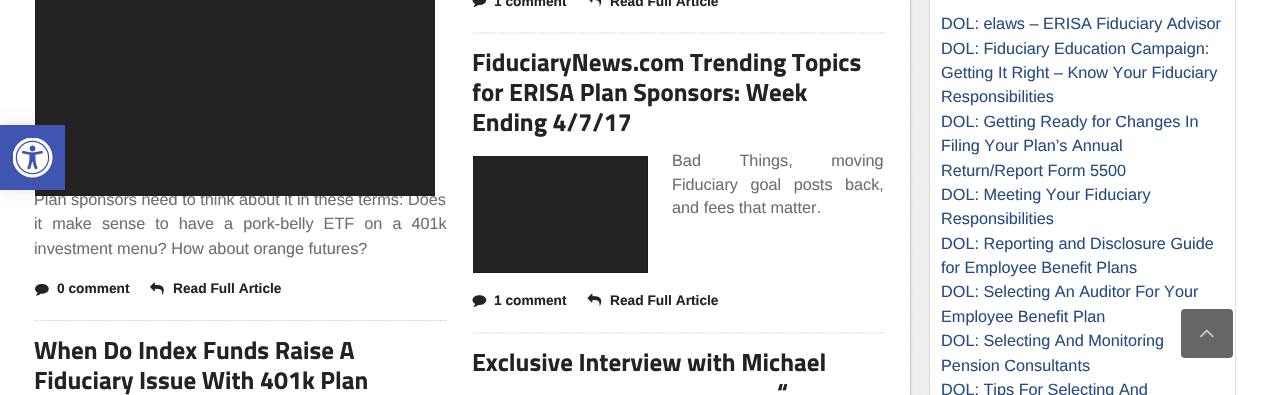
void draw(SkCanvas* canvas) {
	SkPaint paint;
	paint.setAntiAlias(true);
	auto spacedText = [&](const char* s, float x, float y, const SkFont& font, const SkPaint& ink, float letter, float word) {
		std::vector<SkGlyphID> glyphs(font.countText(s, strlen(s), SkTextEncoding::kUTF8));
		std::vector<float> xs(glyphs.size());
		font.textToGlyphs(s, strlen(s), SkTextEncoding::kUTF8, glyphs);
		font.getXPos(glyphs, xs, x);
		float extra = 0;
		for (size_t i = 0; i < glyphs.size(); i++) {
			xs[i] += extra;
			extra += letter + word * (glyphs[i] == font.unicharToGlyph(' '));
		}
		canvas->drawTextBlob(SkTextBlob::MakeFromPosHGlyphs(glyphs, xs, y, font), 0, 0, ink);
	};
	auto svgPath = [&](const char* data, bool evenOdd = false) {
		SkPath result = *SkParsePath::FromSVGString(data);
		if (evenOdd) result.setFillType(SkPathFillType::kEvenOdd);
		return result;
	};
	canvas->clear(0xffffffff);
	paint.setStroke(true);
	paint.setStrokeWidth(1.2);
	paint.setColor(0xffcccccc);
	paint.setPathEffect(SkDashPathEffect::Make({{1.25f, 1.25f}}, 0));
	canvas->drawPath(svgPath("M35 320.5H447.5"), paint);
	paint.setPathEffect(nullptr);
	SkFont f1(fontMgr->matchFamilyStyle("Liberation Sans", SkFontStyle::Normal()), 16.25);
	f1.setSubpixel(true);
	paint.setStroke(false);
	paint.setColor(0xff6f6f6f);
	canvas->drawString("Plan sponsors need to think about it in these terms: Does", 34, 205, f1, paint);
	paint.setColor(0xff232323);
	canvas->drawRect(SkRect::MakeXYWH(35.5, -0.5, 399, 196), paint);
	paint.setStroke(true);
	paint.setStrokeWidth(1);
	paint.setColor(0xff1e1e1e);
	canvas->drawRect(SkRect::MakeXYWH(35.5, -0.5, 399, 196), paint);
	paint.setStroke(false);
	paint.setColor(0xff6f6f6f);
	spacedText("it make sense to have a pork-belly ETF on a 401k", 34, 229, f1, paint, 0, 5.5);
	canvas->drawString("investment menu? How about orange futures?", 34, 254, f1, paint);
	canvas->drawImageRect(SkImages::DeferredFromEncodedData(SkData::MakeFromFileName("img1.png")), SkRect::MakeXYWH(35, 283, 14, 13), SkSamplingOptions());
	SkFont f2(fontMgr->matchFamilyStyle("Liberation Sans", SkFontStyle::Bold()), 13.75);
	f2.setSubpixel(true);
	paint.setColor(0xff232323);
	canvas->drawString("0 comment", 57, 293, f2, paint);
	canvas->drawImageRect(SkImages::DeferredFromEncodedData(SkData::MakeFromFileName("img2.png")), SkRect::MakeXYWH(150, 282, 14, 13), SkSamplingOptions());
	canvas->drawString("Read Full Article", 173, 293, f2, paint);
	SkFont f3(fontMgr->matchFamilyStyle("Titillium Web", SkFontStyle::Bold()), 25);
	f3.setSubpixel(true);
	canvas->drawString("When Do Index Funds Raise A", 34, 359, f3, paint);
	canvas->drawString("Fiduciary Issue With 401k Plan", 34, 389, f3, paint);
	paint.setStroke(true);
	paint.setStrokeWidth(1.2);
	paint.setColor(0xffcccccc);
	paint.setPathEffect(SkDashPathEffect::Make({{1.25f, 1.25f}}, 0));
	canvas->drawPath(svgPath("M472.5 33H885"), paint);
	paint.setPathEffect(nullptr);
	canvas->drawImageRect(SkImages::DeferredFromEncodedData(SkData::MakeFromFileName("img3.png")), SkRect::MakeXYWH(472, 0, 15, 7), SkSamplingOptions());
	paint.setStroke(false);
	paint.setColor(0xff232323);
	canvas->drawString("1 comment", 494, 6, f2, paint);
	canvas->drawImageRect(SkImages::DeferredFromEncodedData(SkData::MakeFromFileName("img4.png")), SkRect::MakeXYWH(589, 0, 13, 6), SkSamplingOptions());
	canvas->drawString("Read Full Article", 610, 6, f2, paint);
	paint.setStroke(true);
	paint.setColor(0xffcccccc);
	paint.setPathEffect(SkDashPathEffect::Make({{1.25f, 1.25f}}, 0));
	canvas->drawPath(svgPath("M472.5 333H885"), paint);
	paint.setPathEffect(nullptr);
	paint.setStroke(false);
	paint.setColor(0xff232323);
	canvas->drawString("FiduciaryNews.com Trending Topics", 472, 71, f3, paint);
	canvas->drawString("for ERISA Plan Sponsors: Week", 472, 101, f3, paint);
	canvas->drawString("Ending 4/7/17", 472, 131, f3, paint);
	canvas->drawRect(SkRect::MakeXYWH(473.5, 156.5, 174, 116), paint);
	paint.setStroke(true);
	paint.setStrokeWidth(1);
	paint.setColor(0xff1e1e1e);
	canvas->drawRect(SkRect::MakeXYWH(473.5, 156.5, 174, 116), paint);
	paint.setStroke(false);
	paint.setColor(0xff6f6f6f);
	spacedText("Bad Things, moving", 672, 166, f1, paint, 0, 34);
	spacedText("Fiduciary goal posts back,", 672, 190, f1, paint, 0, 8);
	canvas->drawString("and fees that matter.", 672, 213, f1, paint);
	canvas->drawImageRect(SkImages::DeferredFromEncodedData(SkData::MakeFromFileName("img5.png")), SkRect::MakeXYWH(472, 295, 15, 12), SkSamplingOptions());
	paint.setColor(0xff232323);
	canvas->drawString("1 comment", 494, 305, f2, paint);
	canvas->drawImageRect(SkImages::DeferredFromEncodedData(SkData::MakeFromFileName("img6.png")), SkRect::MakeXYWH(587, 293, 15, 13), SkSamplingOptions());
	canvas->drawString("Read Full Article", 610, 305, f2, paint);
	canvas->drawString("Exclusive Interview with Michael", 472, 371, f3, paint);
	canvas->drawString("“", 777, 401, f3, paint);
	canvas->drawImageRect(SkImages::DeferredFromEncodedData(SkData::MakeFromFileName("img7.png")), SkRect::MakeXYWH(910, 0, 19, 395), SkSamplingOptions());
	paint.setStroke(true);
	paint.setColor(0xffdddddd);
	canvas->drawRect(SkRect::MakeXYWH(929.5, -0.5, 306, 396), paint);
	paint.setStroke(false);
	paint.setColor(0xff264c84);
	canvas->drawString("DOL: elaws – ERISA Fiduciary Advisor", 941, 29, f1, paint);
	canvas->drawString("DOL: Fiduciary Education Campaign:", 941, 54, f1, paint);
	canvas->drawString("Getting It Right – Know Your Fiduciary", 941, 78, f1, paint);
	canvas->drawString("Responsibilities", 941, 102, f1, paint);
	canvas->drawString("DOL: Getting Ready for Changes In", 941, 127, f1, paint);
	canvas->drawString("Filing Your Plan’s Annual", 941, 151, f1, paint);
	canvas->drawString("Return/Report Form 5500", 941, 176, f1, paint);
	canvas->drawString("DOL: Meeting Your Fiduciary", 941, 200, f1, paint);
	canvas->drawString("Responsibilities", 941, 224, f1, paint);
	canvas->drawString("DOL: Reporting and Disclosure Guide", 941, 249, f1, paint);
	canvas->drawString("for Employee Benefit Plans", 941, 273, f1, paint);
	canvas->drawString("DOL: Selecting An Auditor For Your", 941, 297, f1, paint);
	canvas->drawString("Employee Benefit Plan", 941, 322, f1, paint);
	canvas->drawString("DOL: Selecting And Monitoring", 941, 346, f1, paint);
	canvas->drawString("Pension Consultants", 941, 371, f1, paint);
	canvas->drawString("DOL: Tips For Selecting And", 941, 395, f1, paint);
	paint.setColor(0x1a000000);
	paint.setMaskFilter(SkMaskFilter::MakeBlur(kNormal_SkBlurStyle, 6));
	canvas->drawRect(SkRect::MakeXYWH(0, 125, 65, 65), paint);
	paint.setMaskFilter(nullptr);
	paint.setColor(0xff4054b2);
	canvas->drawRect(SkRect::MakeXYWH(0, 125, 65, 65), paint);
	canvas->drawImageRect(SkImages::DeferredFromEncodedData(SkData::MakeFromFileName("img8.png")), SkRect::MakeXYWH(13, 138, 40, 40), SkSamplingOptions());
	paint.setColor(0xff666666);
	canvas->drawRoundRect(SkRect::MakeXYWH(1181, 309, 52, 49), 4, 4, paint);
	canvas->drawImageRect(SkImages::DeferredFromEncodedData(SkData::MakeFromFileName("img9.png")), SkRect::MakeXYWH(1199, 329, 15, 9), SkSamplingOptions());
}
